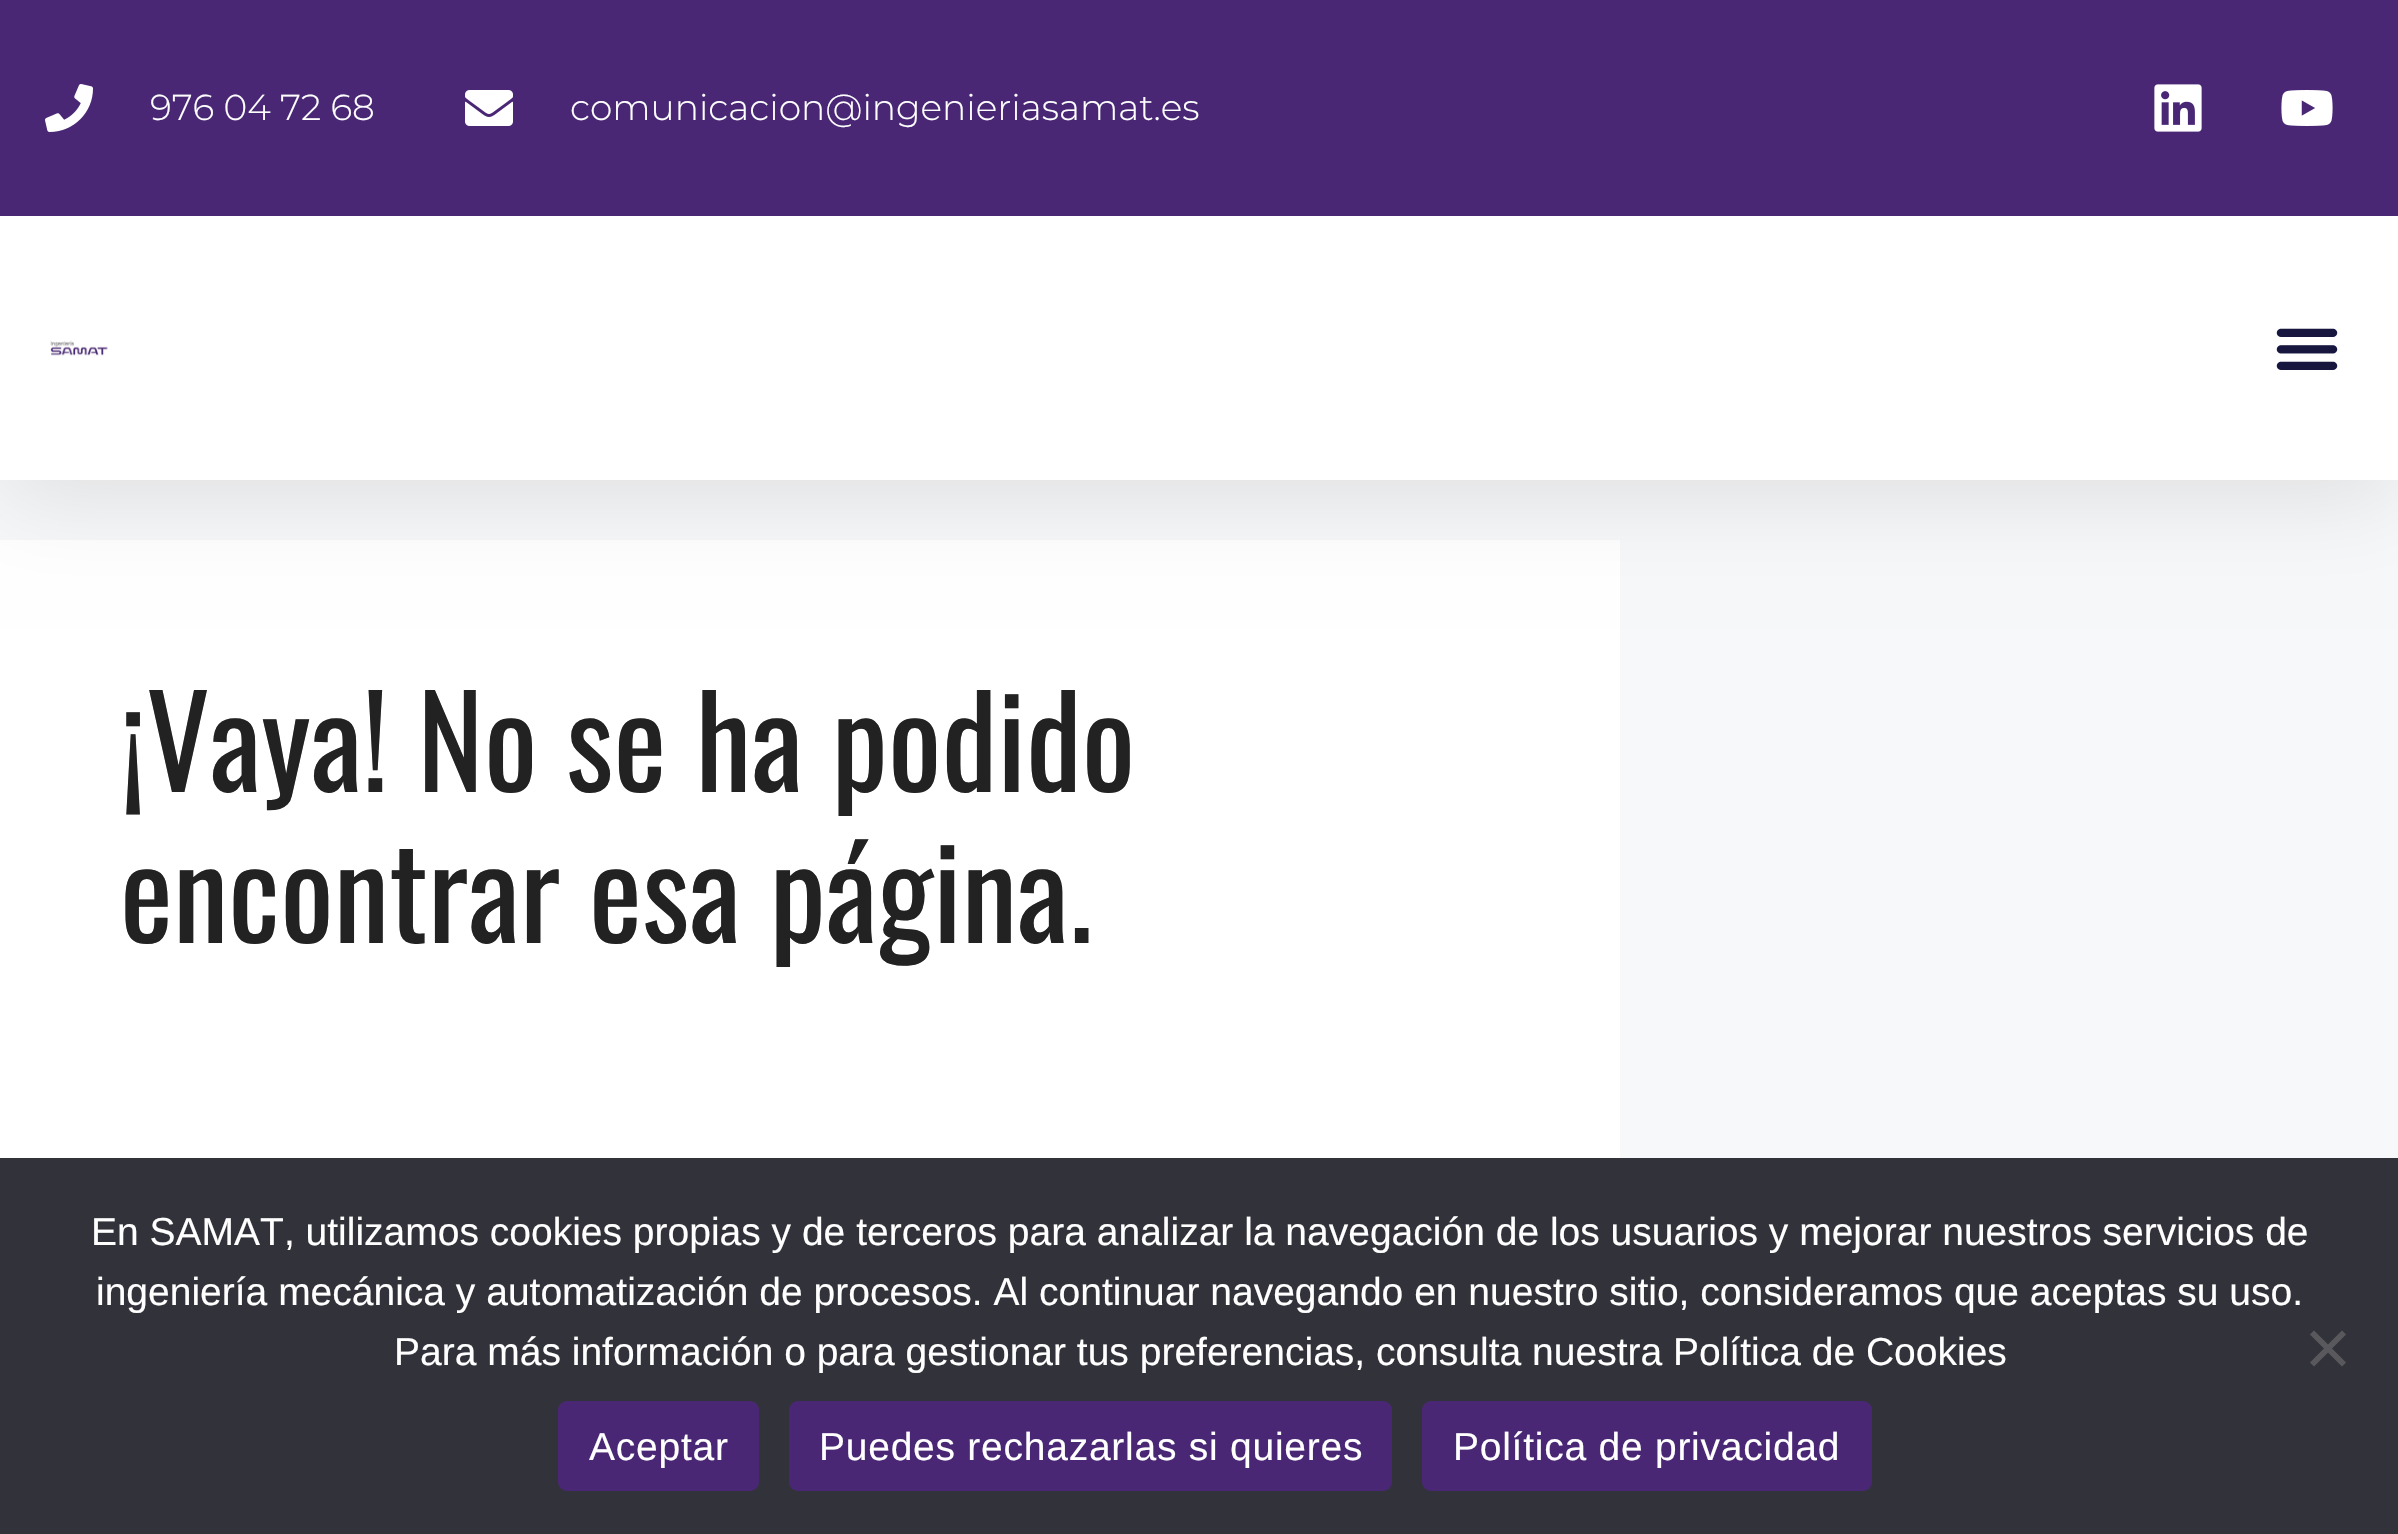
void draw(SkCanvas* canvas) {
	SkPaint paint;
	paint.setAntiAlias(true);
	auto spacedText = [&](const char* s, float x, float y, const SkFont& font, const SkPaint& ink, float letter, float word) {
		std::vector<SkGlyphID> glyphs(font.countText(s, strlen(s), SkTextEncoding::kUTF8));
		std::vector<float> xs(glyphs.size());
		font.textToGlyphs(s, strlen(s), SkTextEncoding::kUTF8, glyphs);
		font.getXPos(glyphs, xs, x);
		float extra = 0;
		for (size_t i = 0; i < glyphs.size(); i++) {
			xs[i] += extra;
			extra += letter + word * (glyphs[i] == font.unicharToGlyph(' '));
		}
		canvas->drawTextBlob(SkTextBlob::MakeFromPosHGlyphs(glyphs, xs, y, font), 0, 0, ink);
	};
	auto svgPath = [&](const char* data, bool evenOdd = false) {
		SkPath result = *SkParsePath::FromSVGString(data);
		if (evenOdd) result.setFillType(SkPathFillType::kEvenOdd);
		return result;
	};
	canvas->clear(0xfff7f8f9);
	paint.setColor(0xffffffff);
	canvas->drawRect(SkRect::MakeXYWH(0, 540, 1620, 618), paint);
	paint.setColor(0x1a000000);
	paint.setMaskFilter(SkMaskFilter::MakeBlur(kNormal_SkBlurStyle, 45));
	canvas->drawRect(SkRect::MakeXYWH(0, 15, 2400, 480), paint);
	paint.setMaskFilter(nullptr);
	paint.setColor(0xff492775);
	canvas->drawRect(SkRect::MakeXYWH(0, 0, 2398, 216), paint);
	canvas->drawImageRect(SkImages::DeferredFromEncodedData(SkData::MakeFromFileName("img1.png")), SkRect::MakeXYWH(45, 84, 48, 48), SkSamplingOptions());
	SkFont f1(fontMgr->matchFamilyStyle("Montserrat", SkFontStyle(300, SkFontStyle::kNormal_Width, SkFontStyle::kUpright_Slant)), 36);
	f1.setSubpixel(true);
	paint.setColor(0xffffffff);
	canvas->drawString("976 04 72 68", 150, 120, f1, paint);
	canvas->drawImageRect(SkImages::DeferredFromEncodedData(SkData::MakeFromFileName("img2.png")), SkRect::MakeXYWH(465, 90, 48, 36), SkSamplingOptions());
	canvas->drawString("comunicacion@ingenieriasamat.es", 570, 120, f1, paint);
	canvas->drawImageRect(SkImages::DeferredFromEncodedData(SkData::MakeFromFileName("img3.png")), SkRect::MakeXYWH(2154, 84, 48, 48), SkSamplingOptions());
	canvas->drawImageRect(SkImages::DeferredFromEncodedData(SkData::MakeFromFileName("img4.png")), SkRect::MakeXYWH(2281, 90, 52, 36), SkSamplingOptions());
	canvas->drawRect(SkRect::MakeXYWH(0, 216, 2398, 264), paint);
	canvas->drawImageRect(SkImages::DeferredFromEncodedData(SkData::MakeFromFileName("img5.png")), SkRect::MakeXYWH(50, 340, 58, 16), SkSamplingOptions());
	canvas->drawImageRect(SkImages::DeferredFromEncodedData(SkData::MakeFromFileName("img6.png")), SkRect::MakeXYWH(2276, 328, 62, 42), SkSamplingOptions());
	SkFont f2(fontMgr->matchFamilyStyle("Oswald", SkFontStyle::Normal()), 126);
	f2.setSubpixel(true);
	paint.setColor(0xff222222);
	canvas->drawString("¡Vaya! No se ha podido", 120, 792, f2, paint);
	canvas->drawString("encontrar esa página.", 120, 943, f2, paint);
	paint.setColor(0xff32323a);
	canvas->drawRect(SkRect::MakeXYWH(0, 1158, 2398, 376), paint);
	SkFont f3(fontMgr->matchFamilyStyle("Liberation Sans", SkFontStyle::Normal()), 39);
	f3.setSubpixel(true);
	paint.setColor(0xffffffff);
	canvas->drawString("En SAMAT, utilizamos cookies propias y de terceros para analizar la navegación de los usuarios y mejorar nuestros servicios de", 91, 1245, f3, paint);
	canvas->drawString("ingeniería mecánica y automatización de procesos. Al continuar navegando en nuestro sitio, consideramos que aceptas su uso.", 96, 1305, f3, paint);
	canvas->drawString("Para más información o para gestionar tus preferencias, consulta nuestra Política de Cookies", 394, 1365, f3, paint);
	paint.setColor(0xff59595d);
	canvas->drawPath(svgPath("M2342 1330.5L2346 1334.5L2314 1366.5L2310 1362.5Z"), paint);
	canvas->drawPath(svgPath("M2310 1334.5L2314 1330.5L2346 1362.5L2342 1366.5Z"), paint);
	paint.setColor(0xff492775);
	canvas->drawRoundRect(SkRect::MakeXYWH(558, 1401, 201, 90), 9, 9, paint);
	paint.setColor(0xffffffff);
	spacedText("Aceptar", 589, 1460, f3, paint, 0.75, 0);
	paint.setColor(0xff492775);
	canvas->drawRoundRect(SkRect::MakeXYWH(789, 1401, 603, 90), 9, 9, paint);
	paint.setColor(0xffffffff);
	spacedText("Puedes rechazarlas si quieres", 819, 1460, f3, paint, 0.75, 0);
	paint.setColor(0xff492775);
	canvas->drawRoundRect(SkRect::MakeXYWH(1422, 1401, 450, 90), 9, 9, paint);
	paint.setColor(0xffffffff);
	spacedText("Política de privacidad", 1453, 1460, f3, paint, 0.75, 0);
}
